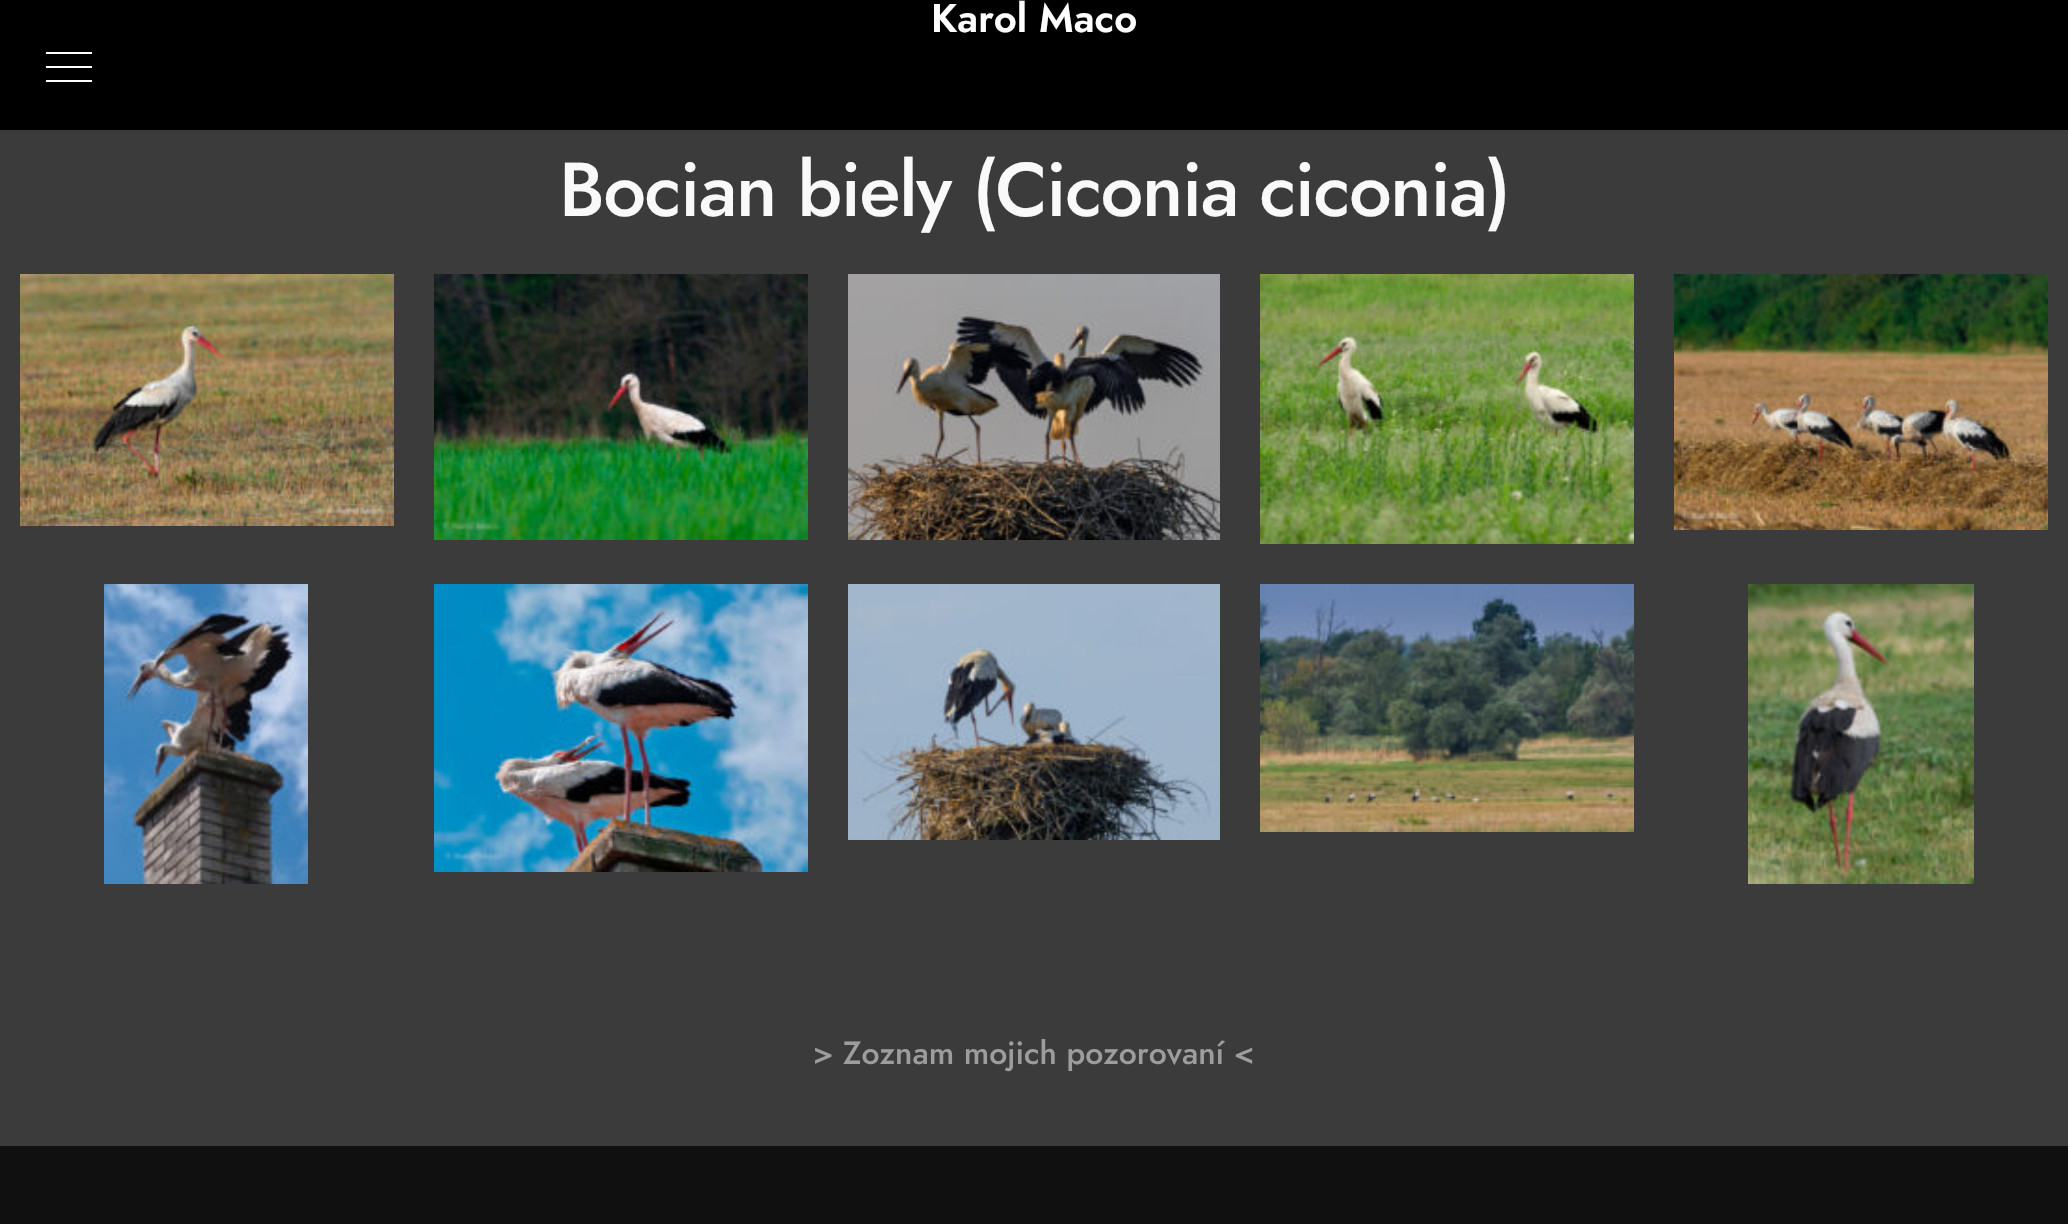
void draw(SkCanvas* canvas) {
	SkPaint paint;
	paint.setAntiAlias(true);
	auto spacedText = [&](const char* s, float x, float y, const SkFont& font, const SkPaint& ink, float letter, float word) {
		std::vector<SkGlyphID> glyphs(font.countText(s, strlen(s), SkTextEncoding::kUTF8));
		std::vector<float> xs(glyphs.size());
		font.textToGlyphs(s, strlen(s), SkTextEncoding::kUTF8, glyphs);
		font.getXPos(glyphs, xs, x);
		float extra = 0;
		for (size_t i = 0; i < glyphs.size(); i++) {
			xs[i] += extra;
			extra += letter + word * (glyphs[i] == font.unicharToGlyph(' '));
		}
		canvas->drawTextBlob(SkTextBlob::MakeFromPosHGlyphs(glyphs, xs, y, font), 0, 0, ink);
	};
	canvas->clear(0xff3b3b3b);
	paint.setColor(0xff000000);
	canvas->drawRect(SkRect::MakeXYWH(0, 0, 2068, 130), paint);
	SkFont f1(fontMgr->matchFamilyStyle("Jost", SkFontStyle(600, SkFontStyle::kNormal_Width, SkFontStyle::kUpright_Slant)), 40);
	f1.setSubpixel(true);
	paint.setColor(0xffffffff);
	canvas->drawString("Karol Maco", 931, 32, f1, paint);
	canvas->drawRect(SkRect::MakeXYWH(46, 66, 46, 2), paint);
	canvas->drawRect(SkRect::MakeXYWH(46, 52, 46, 2), paint);
	canvas->drawRect(SkRect::MakeXYWH(46, 80, 46, 2), paint);
	SkFont f2(fontMgr->matchFamilyStyle("Jost", SkFontStyle(500, SkFontStyle::kNormal_Width, SkFontStyle::kUpright_Slant)), 76);
	f2.setSubpixel(true);
	paint.setColor(0xfff9f9f9);
	spacedText("Bocian biely (Ciconia ciconia)", 559, 216, f2, paint, -1.4, 0);
	canvas->drawImageRect(SkImages::DeferredFromEncodedData(SkData::MakeFromFileName("img1.png")), SkRect::MakeXYWH(20, 274, 374, 252), SkSamplingOptions());
	canvas->drawImageRect(SkImages::DeferredFromEncodedData(SkData::MakeFromFileName("img2.png")), SkRect::MakeXYWH(434, 274, 374, 266), SkSamplingOptions());
	canvas->drawImageRect(SkImages::DeferredFromEncodedData(SkData::MakeFromFileName("img3.png")), SkRect::MakeXYWH(848, 274, 372, 266), SkSamplingOptions());
	canvas->drawImageRect(SkImages::DeferredFromEncodedData(SkData::MakeFromFileName("img4.png")), SkRect::MakeXYWH(1260, 274, 374, 270), SkSamplingOptions());
	canvas->drawImageRect(SkImages::DeferredFromEncodedData(SkData::MakeFromFileName("img5.png")), SkRect::MakeXYWH(1674, 274, 374, 256), SkSamplingOptions());
	canvas->drawImageRect(SkImages::DeferredFromEncodedData(SkData::MakeFromFileName("img6.png")), SkRect::MakeXYWH(104, 584, 204, 300), SkSamplingOptions());
	canvas->drawImageRect(SkImages::DeferredFromEncodedData(SkData::MakeFromFileName("img7.png")), SkRect::MakeXYWH(434, 584, 374, 288), SkSamplingOptions());
	canvas->drawImageRect(SkImages::DeferredFromEncodedData(SkData::MakeFromFileName("img8.png")), SkRect::MakeXYWH(848, 584, 372, 256), SkSamplingOptions());
	canvas->drawImageRect(SkImages::DeferredFromEncodedData(SkData::MakeFromFileName("img9.png")), SkRect::MakeXYWH(1260, 584, 374, 248), SkSamplingOptions());
	canvas->drawImageRect(SkImages::DeferredFromEncodedData(SkData::MakeFromFileName("img10.png")), SkRect::MakeXYWH(1748, 584, 226, 300), SkSamplingOptions());
	SkFont f3(fontMgr->matchFamilyStyle("Jost", SkFontStyle(500, SkFontStyle::kNormal_Width, SkFontStyle::kUpright_Slant)), 32);
	f3.setSubpixel(true);
	paint.setColor(0xff9d9d9d);
	canvas->drawString("> Zoznam mojich pozorovaní <", 813, 1064, f3, paint);
	paint.setColor(0xff101010);
	canvas->drawRect(SkRect::MakeXYWH(0, 1146, 2068, 78), paint);
}
